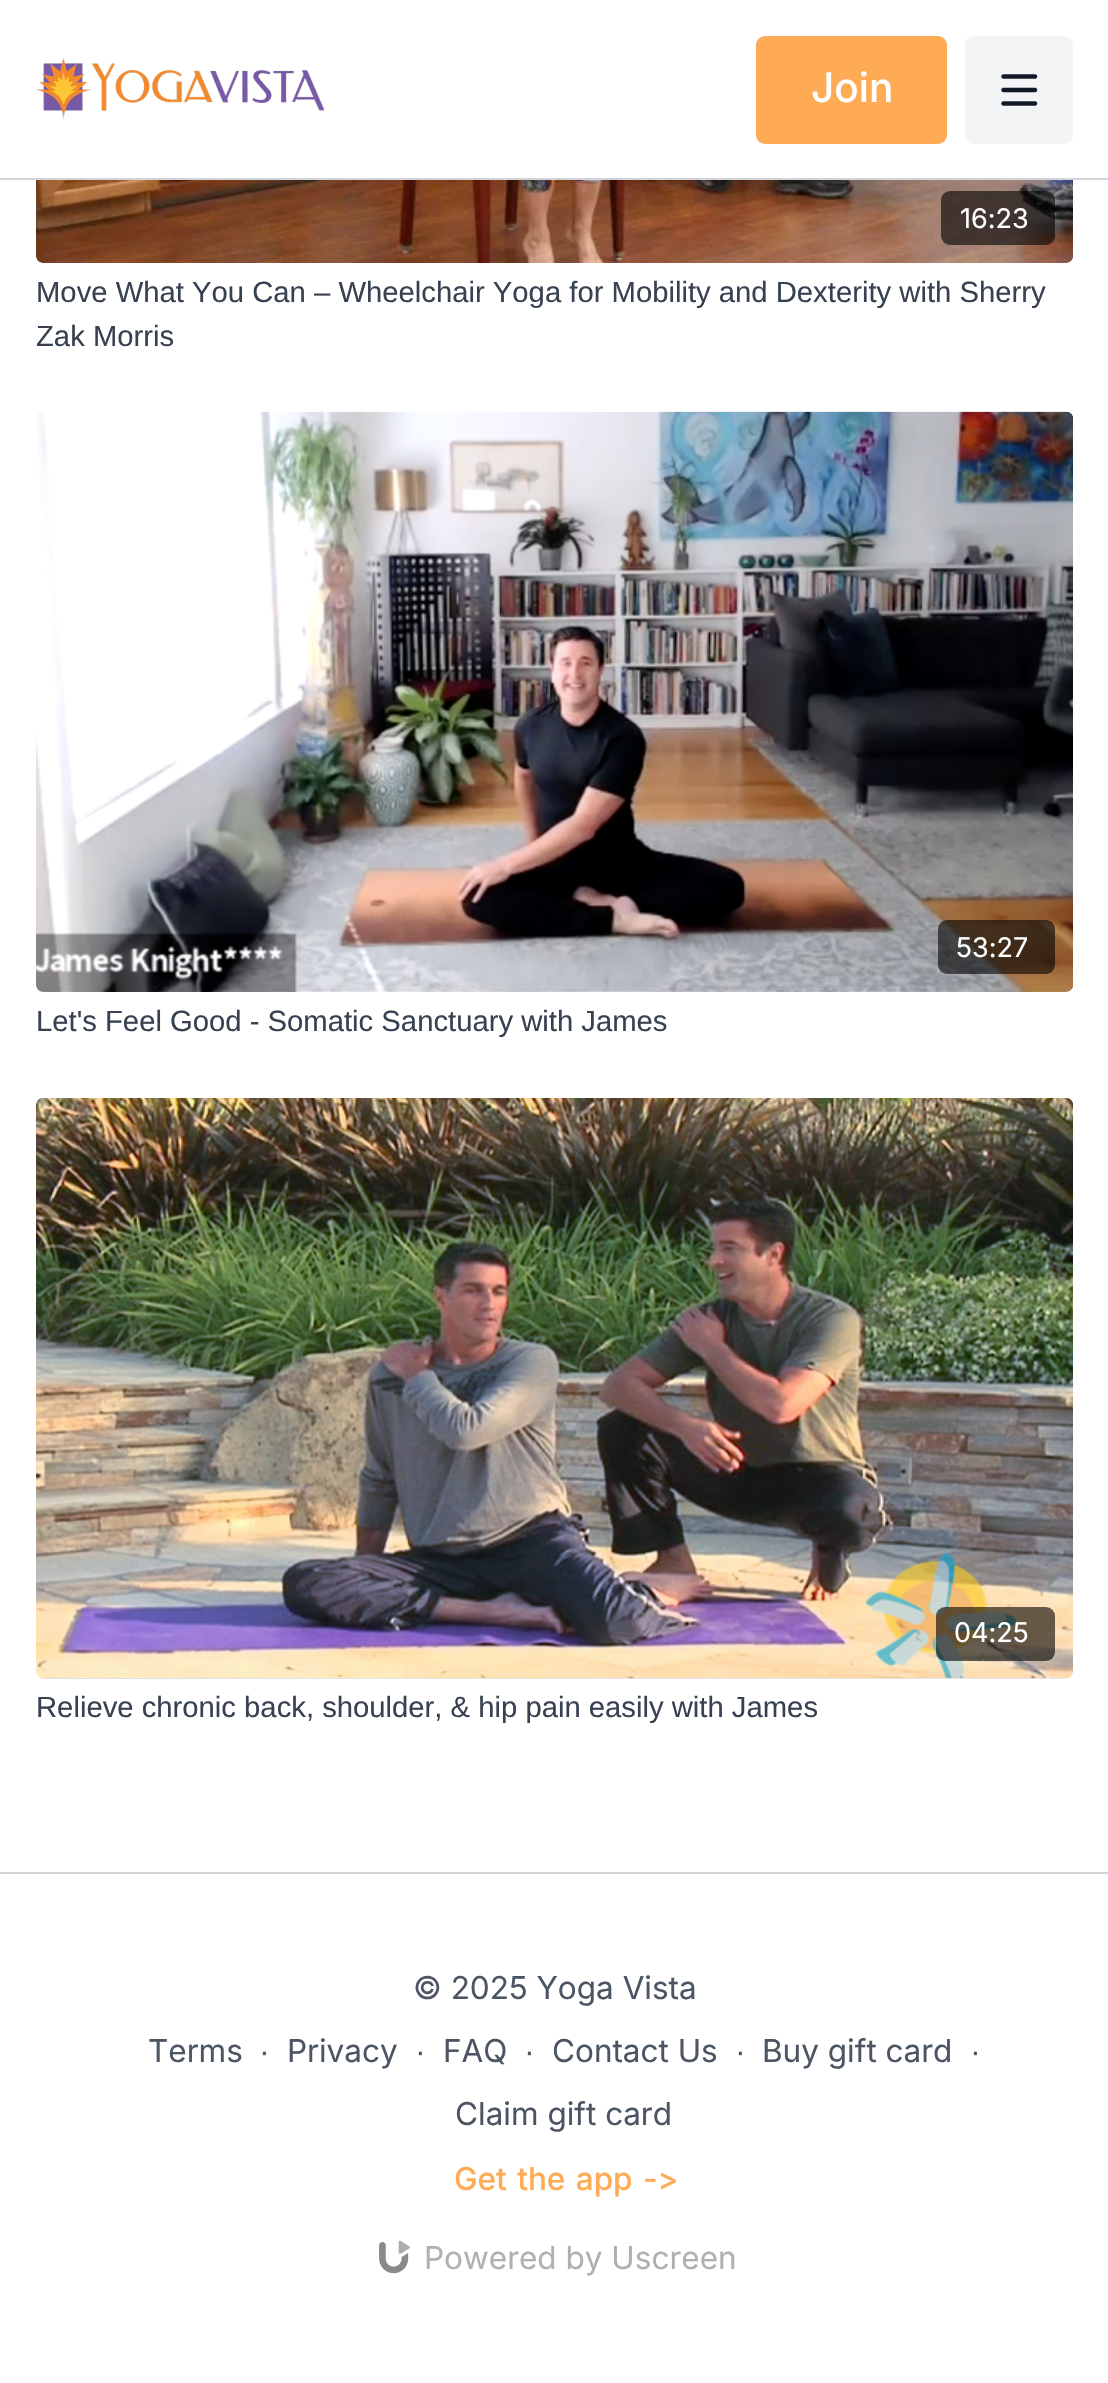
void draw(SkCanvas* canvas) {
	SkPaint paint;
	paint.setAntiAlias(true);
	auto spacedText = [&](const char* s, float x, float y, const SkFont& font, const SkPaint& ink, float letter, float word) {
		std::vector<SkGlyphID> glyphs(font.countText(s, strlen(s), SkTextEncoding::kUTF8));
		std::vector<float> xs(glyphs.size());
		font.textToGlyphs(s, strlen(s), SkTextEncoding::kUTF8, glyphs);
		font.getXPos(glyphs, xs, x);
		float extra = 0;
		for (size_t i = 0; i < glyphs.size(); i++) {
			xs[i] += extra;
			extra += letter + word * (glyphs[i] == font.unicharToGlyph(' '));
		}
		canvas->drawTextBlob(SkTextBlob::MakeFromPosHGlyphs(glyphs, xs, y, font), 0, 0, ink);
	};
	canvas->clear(0xffffffff);
	paint.setColor(0xffd1d5db);
	canvas->drawRect(SkRect::MakeXYWH(0, 178, 1108, 2), paint);
	canvas->drawImageRect(SkImages::DeferredFromEncodedData(SkData::MakeFromFileName("img1.png")), SkRect::MakeXYWH(36, 58, 288, 61), SkSamplingOptions());
	paint.setColor(0xffffaa55);
	canvas->drawRoundRect(SkRect::MakeXYWH(756, 36, 191, 108), 9, 9, paint);
	SkFont f1(fontMgr->matchFamilyStyle("Inter", SkFontStyle(500, SkFontStyle::kNormal_Width, SkFontStyle::kUpright_Slant)), 40.5);
	f1.setSubpixel(true);
	paint.setColor(0xffffffff);
	canvas->drawString("Join", 811, 102, f1, paint);
	paint.setColor(0xfff3f4f6);
	canvas->drawRoundRect(SkRect::MakeXYWH(965, 36, 108, 108), 9, 9, paint);
	canvas->drawImageRect(SkImages::DeferredFromEncodedData(SkData::MakeFromFileName("img2.png")), SkRect::MakeXYWH(1001, 74, 37, 32), SkSamplingOptions());
	canvas->drawImageRect(SkImages::DeferredFromEncodedData(SkData::MakeFromFileName("img3.png")), SkRect::MakeXYWH(36, 180, 1037, 83), SkSamplingOptions());
	paint.setColor(0x99000000);
	canvas->drawRoundRect(SkRect::MakeXYWH(941, 191, 114, 54), 9, 9, paint);
	SkFont f2(fontMgr->matchFamilyStyle("Inter", SkFontStyle::Normal()), 27);
	f2.setSubpixel(true);
	paint.setColor(0xffffffff);
	canvas->drawString("16:23", 960, 228, f2, paint);
	SkFont f3(fontMgr->matchFamilyStyle("Liberation Sans", SkFontStyle::Normal()), 29.25);
	f3.setSubpixel(true);
	paint.setColor(0xff374151);
	canvas->drawString("Move What You Can – Wheelchair Yoga for Mobility and Dexterity with Sherry", 36, 302, f3, paint);
	canvas->drawString("Zak Morris", 36, 346, f3, paint);
	canvas->drawImageRect(SkImages::DeferredFromEncodedData(SkData::MakeFromFileName("img4.png")), SkRect::MakeXYWH(36, 411, 1037, 581), SkSamplingOptions());
	paint.setColor(0x99000000);
	canvas->drawRoundRect(SkRect::MakeXYWH(938, 920, 117, 54), 9, 9, paint);
	paint.setColor(0xffffffff);
	canvas->drawString("53:27", 956, 957, f2, paint);
	paint.setColor(0xff374151);
	canvas->drawString("Let's Feel Good - Somatic Sanctuary with James", 36, 1031, f3, paint);
	{
		const SkColor colors[] = {0xffdfdfdf, 0xffe1e1e1, 0xffe4e4e4};
		const float stops[] = {0.08, 0.18, 0.33};
		const SkPoint ends[] = {{36, 1388}, {1073, 1388}};
		paint.setShader(SkGradientShader::MakeLinear(ends, colors, stops, 3, SkTileMode::kClamp));
		paint.setAlpha(255);
	}
	canvas->drawRoundRect(SkRect::MakeXYWH(36, 1098, 1037, 581), 9, 9, paint);
	canvas->drawImageRect(SkImages::DeferredFromEncodedData(SkData::MakeFromFileName("img5.png")), SkRect::MakeXYWH(36, 1098, 1037, 580), SkSamplingOptions());
	paint.setShader(nullptr);
	paint.setColor(0x99000000);
	canvas->drawRoundRect(SkRect::MakeXYWH(936, 1607, 119, 54), 9, 9, paint);
	paint.setColor(0xffffffff);
	canvas->drawString("04:25", 954, 1642, f2, paint);
	paint.setColor(0xff374151);
	canvas->drawString("Relieve chronic back, shoulder, & hip pain easily with James", 36, 1717, f3, paint);
	paint.setColor(0xffd1d5db);
	canvas->drawRect(SkRect::MakeXYWH(0, 1872, 1108, 2), paint);
	SkFont f4(fontMgr->matchFamilyStyle("Inter", SkFontStyle::Normal()), 31.5);
	f4.setSubpixel(true);
	paint.setColor(0xff4b5563);
	canvas->drawString("© 2025 Yoga Vista", 413, 1999, f4, paint);
	canvas->drawString("Terms", 148, 2062, f4, paint);
	SkFont f5(fontMgr->matchFamilyStyle("Liberation Sans", SkFontStyle::Normal()), 31.5);
	f5.setSubpixel(true);
	canvas->drawString("∙", 260, 2062, f5, paint);
	canvas->drawString("Privacy", 287, 2062, f4, paint);
	canvas->drawString("∙", 416, 2062, f5, paint);
	canvas->drawString("FAQ", 443, 2062, f4, paint);
	canvas->drawString("∙", 525, 2062, f5, paint);
	canvas->drawString("Contact Us", 552, 2062, f4, paint);
	canvas->drawString("∙", 736, 2062, f5, paint);
	canvas->drawString("Buy gift card", 762, 2062, f4, paint);
	canvas->drawString("∙", 971, 2062, f5, paint);
	canvas->drawString("Claim gift card", 455, 2125, f4, paint);
	SkFont f6(fontMgr->matchFamilyStyle("Inter", SkFontStyle(500, SkFontStyle::kNormal_Width, SkFontStyle::kUpright_Slant)), 31.5);
	f6.setSubpixel(true);
	paint.setColor(0xffffaa55);
	spacedText("Get the app ->", 454, 2190, f6, paint, 0, 2);
	canvas->drawImageRect(SkImages::DeferredFromEncodedData(SkData::MakeFromFileName("img6.png")), SkRect::MakeXYWH(379, 2240, 31, 34), SkSamplingOptions());
	paint.setColor(0xffb0b0b0);
	canvas->drawString("Powered by Uscreen", 424, 2269, f4, paint);
}
